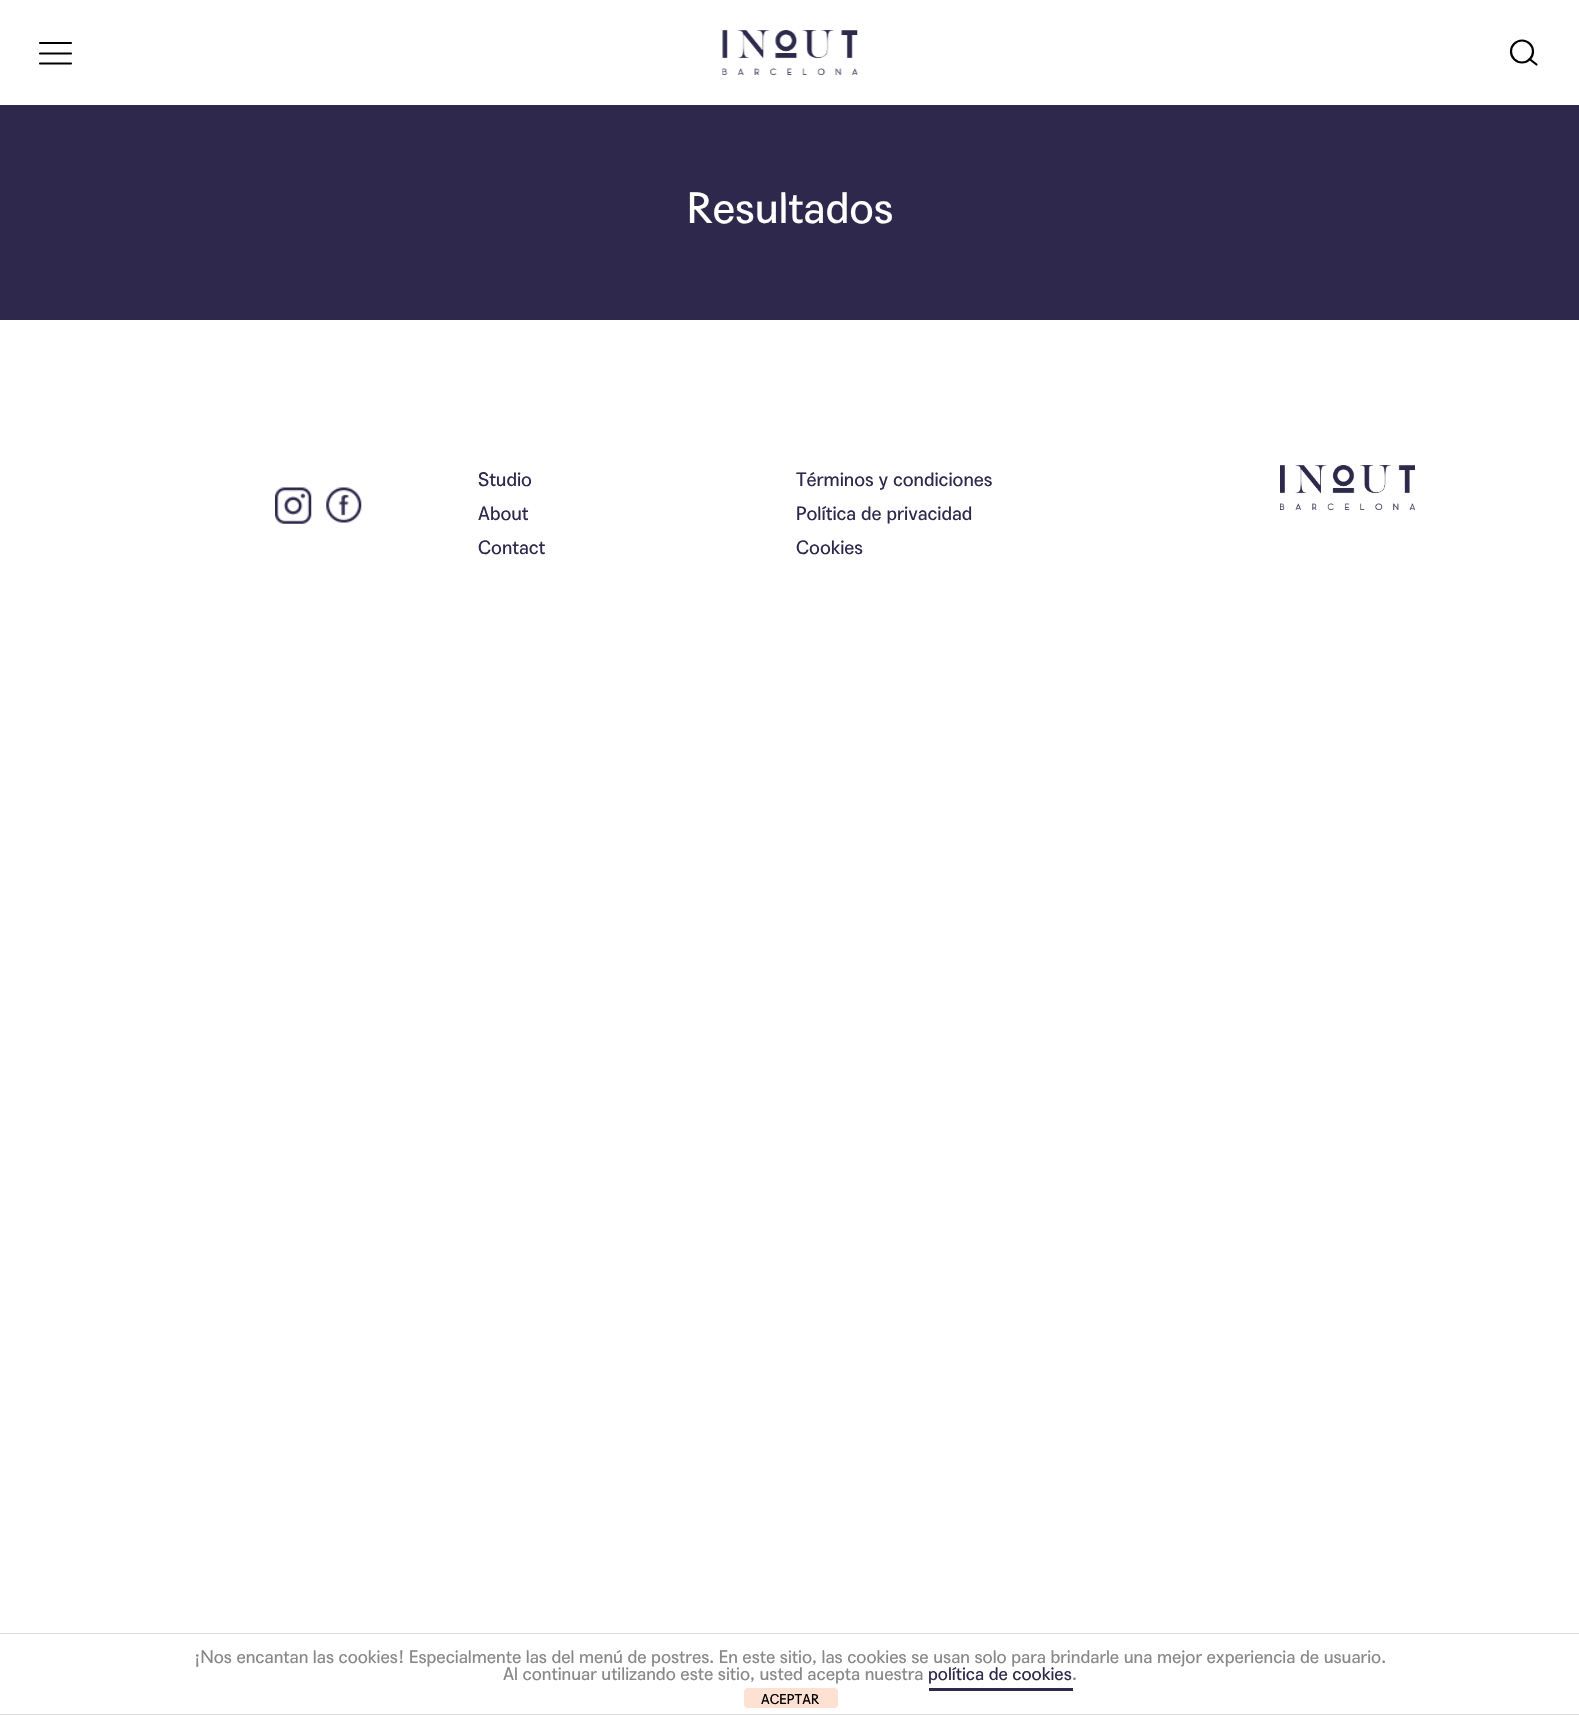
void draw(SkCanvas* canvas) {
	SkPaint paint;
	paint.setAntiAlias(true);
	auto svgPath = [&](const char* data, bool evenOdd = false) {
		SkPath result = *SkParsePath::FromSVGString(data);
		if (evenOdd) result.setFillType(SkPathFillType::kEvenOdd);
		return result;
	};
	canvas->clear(0xffffffff);
	paint.setStroke(true);
	paint.setStrokeWidth(2.2);
	paint.setStrokeCap(SkPaint::kRound_Cap);
	paint.setColor(0xff000000);
	canvas->drawPath(svgPath("M40 43H71M40 53.5H71M40 63.5H71"), paint);
	canvas->drawImageRect(SkImages::DeferredFromEncodedData(SkData::MakeFromFileName("img1.png")), SkRect::MakeXYWH(722, 30, 136, 45), SkSamplingOptions());
	paint.setStrokeCap(SkPaint::kButt_Cap);
	canvas->drawCircle(1522, 51.5, 11, paint);
	paint.setStrokeCap(SkPaint::kRound_Cap);
	canvas->drawPath(svgPath("M1529.5 59L1536.5 64.5"), paint);
	paint.setStroke(false);
	paint.setColor(0xff2e284c);
	canvas->drawRect(SkRect::MakeXYWH(0, 105, 1579, 215), paint);
	SkFont f1(fontMgr->matchFamilyStyle("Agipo", SkFontStyle::Normal()), 42.5);
	f1.setSubpixel(true);
	paint.setColor(0xffffffff);
	canvas->drawString("Resultados", 687, 223, f1, paint);
	canvas->drawImageRect(SkImages::DeferredFromEncodedData(SkData::MakeFromFileName("img2.png")), SkRect::MakeXYWH(275, 487, 37, 37), SkSamplingOptions());
	canvas->drawImageRect(SkImages::DeferredFromEncodedData(SkData::MakeFromFileName("img3.png")), SkRect::MakeXYWH(326, 487, 36, 36), SkSamplingOptions());
	SkFont f2(fontMgr->matchFamilyStyle("Agipo", SkFontStyle::Normal()), 18.75);
	f2.setSubpixel(true);
	paint.setColor(0xff2e284c);
	canvas->drawString("Studio", 478, 486, f2, paint);
	canvas->drawString("About", 478, 520, f2, paint);
	canvas->drawString("Contact", 478, 554, f2, paint);
	canvas->drawString("Términos y condiciones", 796, 486, f2, paint);
	canvas->drawString("Política de privacidad", 796, 520, f2, paint);
	canvas->drawString("Cookies", 796, 554, f2, paint);
	canvas->drawImageRect(SkImages::DeferredFromEncodedData(SkData::MakeFromFileName("img4.png")), SkRect::MakeXYWH(1280, 465, 135, 45), SkSamplingOptions());
	paint.setColor(0xffdddddd);
	canvas->drawRect(SkRect::MakeXYWH(0, 1633, 1579, 1), paint);
	canvas->drawRect(SkRect::MakeXYWH(0, 1714, 1579, 1), paint);
	SkFont f3(fontMgr->matchFamilyStyle("Agipo", SkFontStyle::Normal()), 17.5);
	f3.setSubpixel(true);
	paint.setColor(0xff888888);
	canvas->drawString("¡Nos encantan las cookies! Especialmente las del menú de postres. En este sitio, las cookies se usan solo para brindarle una mejor experiencia de usuario.", 194, 1663, f3, paint);
	canvas->drawString("Al continuar utilizando este sitio, usted acepta nuestra", 503, 1680, f3, paint);
	paint.setColor(0xff2e284c);
	canvas->drawString("política de cookies", 928, 1680, f3, paint);
	canvas->drawRect(SkRect::MakeXYWH(929, 1688, 144, 3), paint);
	paint.setColor(0xff888888);
	canvas->drawString(".", 1072, 1680, f3, paint);
	paint.setColor(0xfffee1d3);
	canvas->drawRoundRect(SkRect::MakeXYWH(744, 1688, 94, 20), 4, 4, paint);
	SkFont f4(fontMgr->matchFamilyStyle("Agipo", SkFontStyle::Normal()), 13.75);
	f4.setSubpixel(true);
	paint.setColor(0xff000000);
	canvas->drawString("ACEPTAR", 761, 1704, f4, paint);
}
